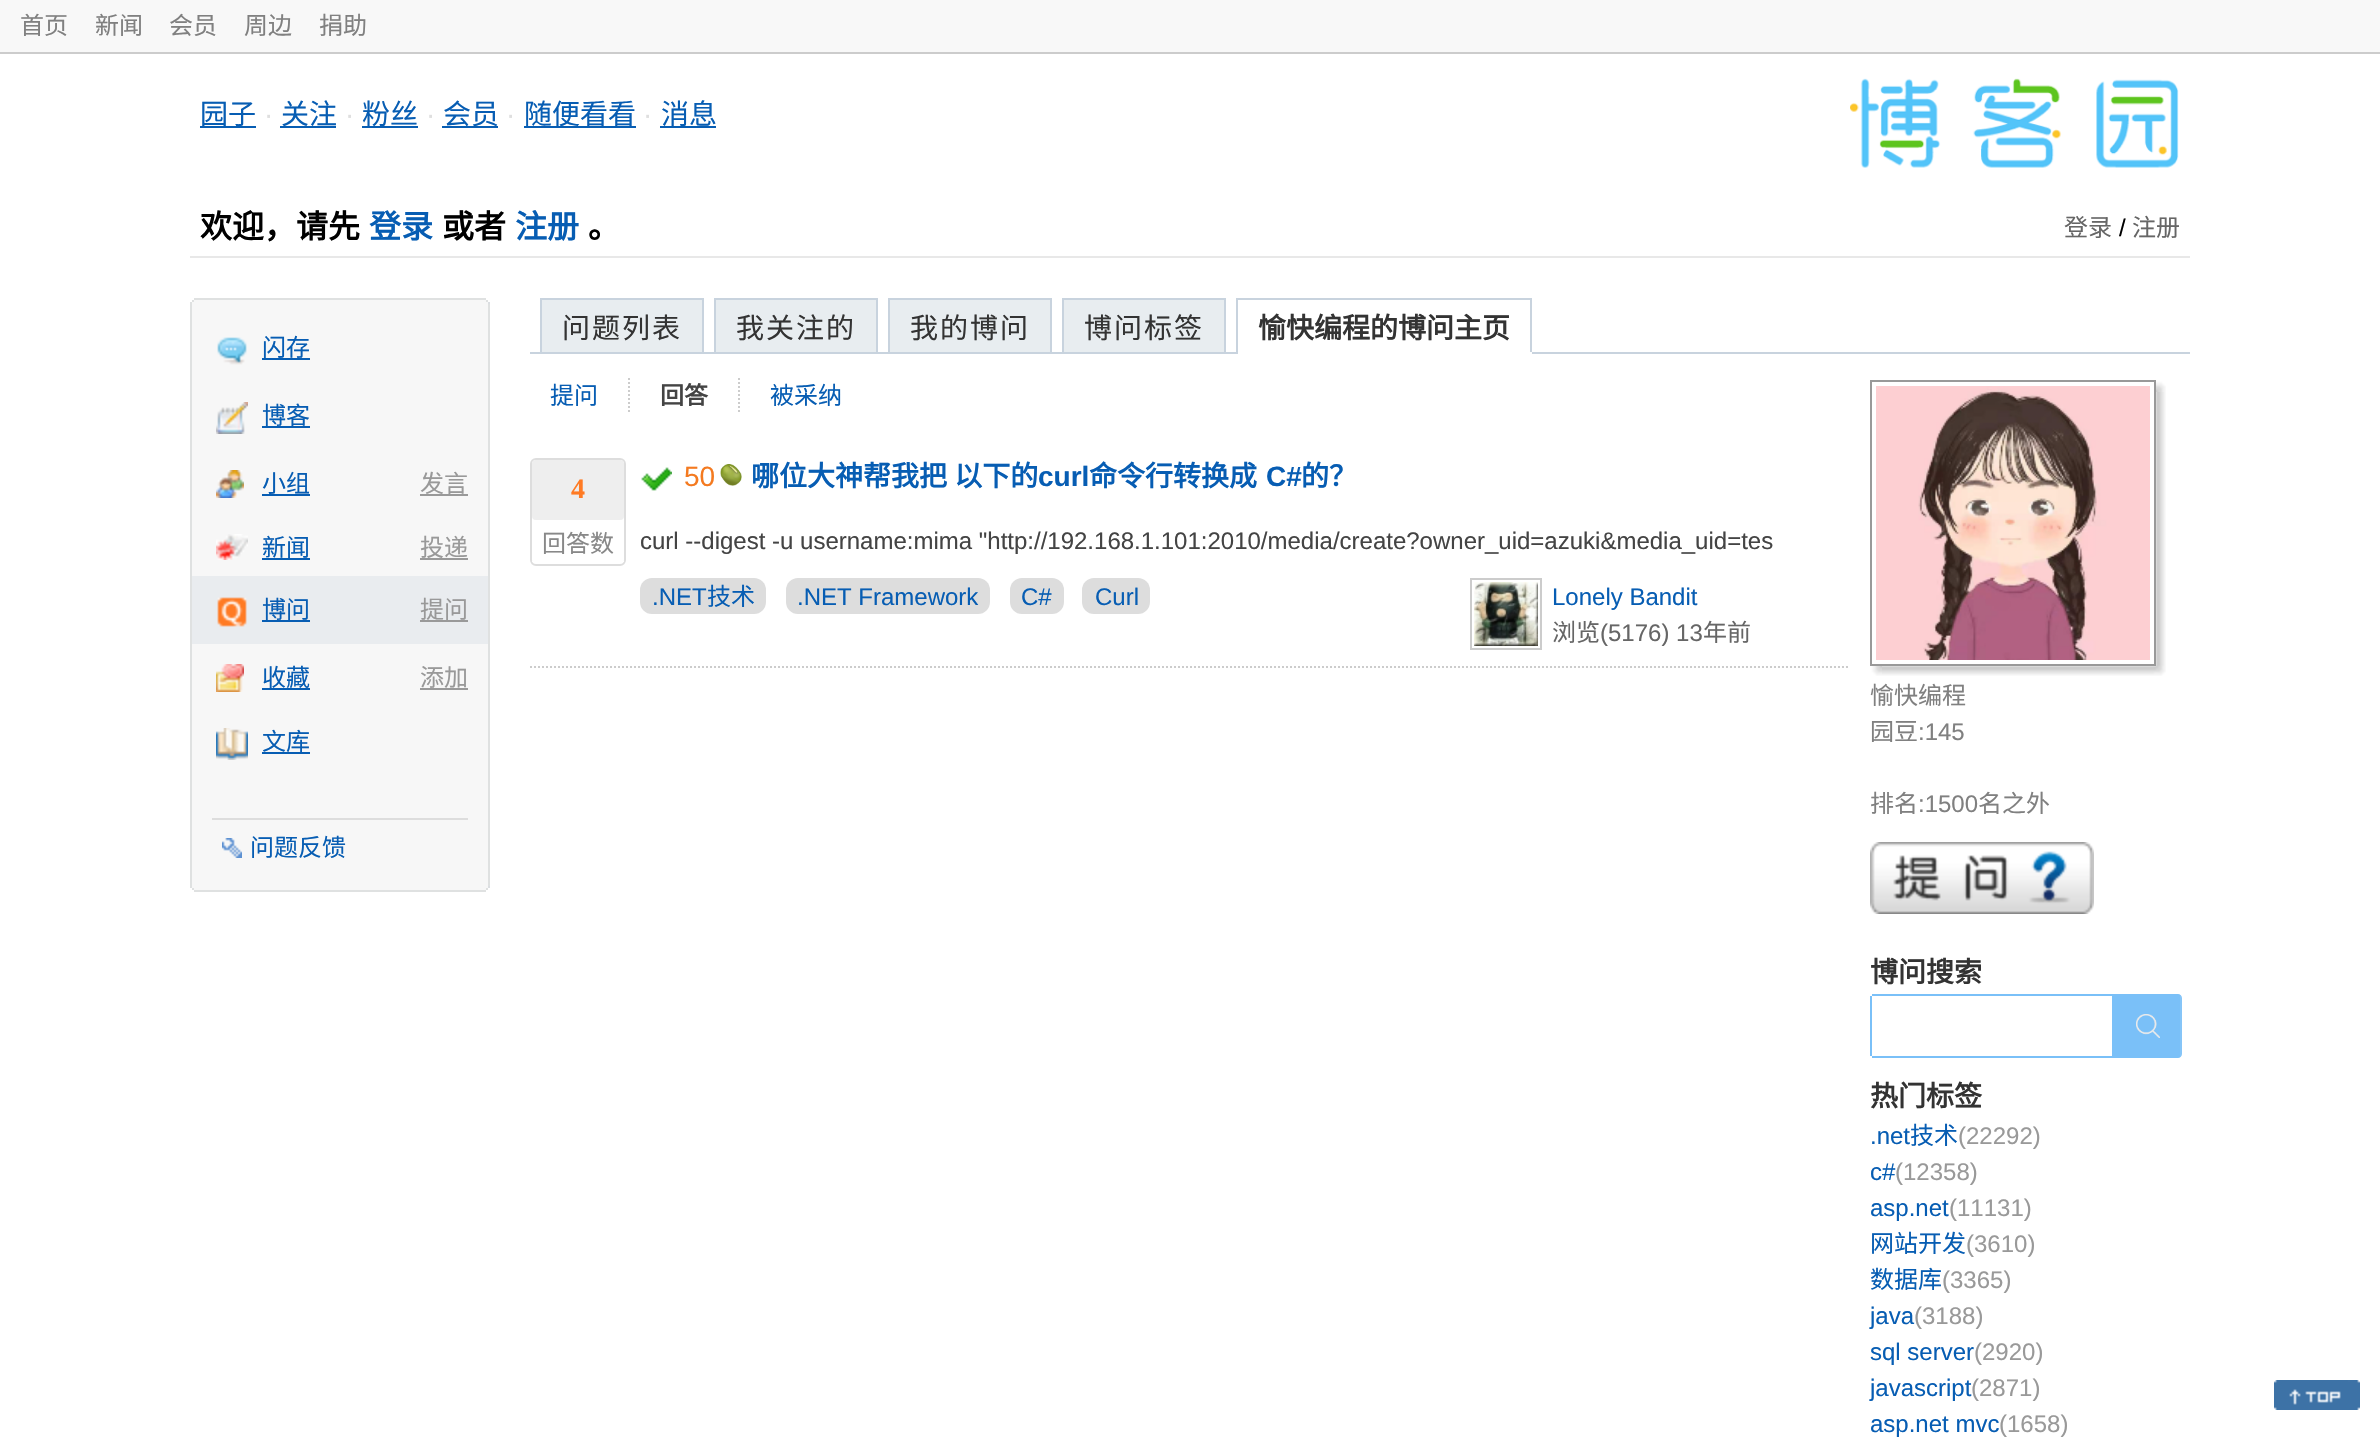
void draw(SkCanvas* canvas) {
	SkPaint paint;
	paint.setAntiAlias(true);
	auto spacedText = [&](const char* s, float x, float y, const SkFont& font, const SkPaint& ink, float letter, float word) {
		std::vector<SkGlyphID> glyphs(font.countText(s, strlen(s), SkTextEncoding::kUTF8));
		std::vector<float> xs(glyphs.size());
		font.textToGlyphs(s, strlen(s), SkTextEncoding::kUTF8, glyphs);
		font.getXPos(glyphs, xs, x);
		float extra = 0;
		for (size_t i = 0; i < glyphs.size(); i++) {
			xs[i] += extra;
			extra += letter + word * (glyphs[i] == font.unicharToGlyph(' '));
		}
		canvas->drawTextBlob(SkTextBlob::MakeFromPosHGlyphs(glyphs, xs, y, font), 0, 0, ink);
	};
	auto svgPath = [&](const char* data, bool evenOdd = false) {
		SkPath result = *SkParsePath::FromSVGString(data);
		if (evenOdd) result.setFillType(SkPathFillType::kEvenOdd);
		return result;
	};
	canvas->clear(0xffffffff);
	paint.setColor(0xfff8f8f8);
	canvas->drawRect(SkRect::MakeXYWH(0, 0, 2380, 52), paint);
	paint.setColor(0xffcccccc);
	canvas->drawRect(SkRect::MakeXYWH(0, 52, 2380, 2), paint);
	SkFont f1(fontMgr->matchFamilyStyle("Noto Sans CJK SC", SkFontStyle::Normal()), 24);
	f1.setSubpixel(true);
	paint.setColor(0xff808080);
	canvas->drawString("首页", 20, 34, f1, paint);
	canvas->drawString("新闻", 95, 34, f1, paint);
	canvas->drawString("会员", 169, 34, f1, paint);
	canvas->drawString("周边", 244, 34, f1, paint);
	canvas->drawString("捐助", 319, 34, f1, paint);
	paint.setColor(0xffe8e8e8);
	canvas->drawRect(SkRect::MakeXYWH(190, 256, 2000, 2), paint);
	paint.setColor(0xff075db3);
	canvas->drawRect(SkRect::MakeXYWH(200, 126, 56, 2), paint);
	SkFont f2(fontMgr->matchFamilyStyle("Noto Sans CJK SC", SkFontStyle::Normal()), 28);
	f2.setSubpixel(true);
	canvas->drawString("园子", 200, 124, f2, paint);
	SkFont f3(fontMgr->matchFamilyStyle("Liberation Sans", SkFontStyle::Normal()), 28);
	f3.setSubpixel(true);
	paint.setColor(0xffdfdfdf);
	canvas->drawString("·", 264, 124, f3, paint);
	paint.setColor(0xff075db3);
	canvas->drawRect(SkRect::MakeXYWH(280, 126, 56, 2), paint);
	canvas->drawString("关注", 281, 124, f2, paint);
	paint.setColor(0xffdfdfdf);
	canvas->drawString("·", 345, 124, f3, paint);
	paint.setColor(0xff075db3);
	canvas->drawRect(SkRect::MakeXYWH(362, 126, 56, 2), paint);
	canvas->drawString("粉丝", 362, 124, f2, paint);
	paint.setColor(0xffdfdfdf);
	canvas->drawString("·", 426, 124, f3, paint);
	paint.setColor(0xff075db3);
	canvas->drawRect(SkRect::MakeXYWH(442, 126, 56, 2), paint);
	canvas->drawString("会员", 443, 124, f2, paint);
	paint.setColor(0xffdfdfdf);
	canvas->drawString("·", 506, 124, f3, paint);
	paint.setColor(0xff075db3);
	canvas->drawRect(SkRect::MakeXYWH(524, 126, 112, 2), paint);
	canvas->drawString("随便看看", 524, 124, f2, paint);
	paint.setColor(0xffdfdfdf);
	canvas->drawString("·", 643, 124, f3, paint);
	paint.setColor(0xff075db3);
	canvas->drawRect(SkRect::MakeXYWH(660, 126, 56, 2), paint);
	canvas->drawString("消息", 661, 124, f2, paint);
	canvas->drawImageRect(SkImages::DeferredFromEncodedData(SkData::MakeFromFileName("img1.png")), SkRect::MakeXYWH(1850, 78, 329, 90), SkSamplingOptions());
	SkFont f4(fontMgr->matchFamilyStyle("Noto Sans CJK SC", SkFontStyle::Bold()), 32);
	f4.setSubpixel(true);
	paint.setColor(0xff000000);
	canvas->drawString("欢迎，请先", 200, 238, f4, paint);
	paint.setColor(0xff075db3);
	canvas->drawString("登录", 369, 238, f4, paint);
	paint.setColor(0xff000000);
	canvas->drawString("或者", 442, 238, f4, paint);
	paint.setColor(0xff075db3);
	canvas->drawString("注册", 515, 238, f4, paint);
	paint.setColor(0xff000000);
	canvas->drawString("。", 588, 238, f4, paint);
	paint.setColor(0xff666666);
	canvas->drawString("登录", 2064, 236, f1, paint);
	SkFont f5(fontMgr->matchFamilyStyle("Liberation Sans", SkFontStyle::Normal()), 24);
	f5.setSubpixel(true);
	paint.setColor(0xff000000);
	canvas->drawString("/", 2119, 236, f5, paint);
	paint.setColor(0xff666666);
	canvas->drawString("注册", 2132, 236, f1, paint);
	paint.setColor(0xffdfe1e1);
	canvas->drawRect(SkRect::MakeXYWH(194, 298, 292, 2), paint);
	paint.setColor(0xfff7f7f7);
	canvas->drawRect(SkRect::MakeXYWH(192, 300, 296, 2), paint);
	paint.setColor(0xffdfe1e1);
	canvas->drawRect(SkRect::MakeXYWH(486, 300, 2, 2), paint);
	canvas->drawRect(SkRect::MakeXYWH(192, 300, 2, 2), paint);
	paint.setColor(0xfff7f7f7);
	canvas->drawRect(SkRect::MakeXYWH(190, 302, 300, 2), paint);
	paint.setColor(0xffdbdee2);
	canvas->drawRect(SkRect::MakeXYWH(488, 302, 2, 2), paint);
	paint.setColor(0xffdfe1e1);
	canvas->drawRect(SkRect::MakeXYWH(190, 302, 2, 584), paint);
	paint.setColor(0xfff7f7f7);
	canvas->drawRect(SkRect::MakeXYWH(192, 304, 296, 582), paint);
	paint.setColor(0xffdfe1e1);
	canvas->drawRect(SkRect::MakeXYWH(488, 304, 2, 582), paint);
	canvas->drawImageRect(SkImages::DeferredFromEncodedData(SkData::MakeFromFileName("img2.png")), SkRect::MakeXYWH(217, 337, 30, 28), SkSamplingOptions());
	paint.setColor(0xff075db3);
	canvas->drawString("闪存", 262, 356, f1, paint);
	canvas->drawRect(SkRect::MakeXYWH(262, 358, 48, 2), paint);
	canvas->drawImageRect(SkImages::DeferredFromEncodedData(SkData::MakeFromFileName("img3.png")), SkRect::MakeXYWH(216, 402, 32, 32), SkSamplingOptions());
	canvas->drawString("博客", 262, 424, f1, paint);
	canvas->drawRect(SkRect::MakeXYWH(262, 426, 48, 2), paint);
	canvas->drawImageRect(SkImages::DeferredFromEncodedData(SkData::MakeFromFileName("img4.png")), SkRect::MakeXYWH(216, 470, 28, 28), SkSamplingOptions());
	canvas->drawString("小组", 262, 492, f1, paint);
	canvas->drawRect(SkRect::MakeXYWH(262, 494, 48, 2), paint);
	paint.setColor(0xff999999);
	canvas->drawString("发言", 420, 492, f1, paint);
	canvas->drawRect(SkRect::MakeXYWH(420, 494, 48, 2), paint);
	canvas->drawImageRect(SkImages::DeferredFromEncodedData(SkData::MakeFromFileName("img5.png")), SkRect::MakeXYWH(216, 534, 32, 26), SkSamplingOptions());
	paint.setColor(0xff075db3);
	canvas->drawString("新闻", 262, 556, f1, paint);
	canvas->drawRect(SkRect::MakeXYWH(262, 558, 48, 2), paint);
	paint.setColor(0xff999999);
	canvas->drawString("投递", 420, 556, f1, paint);
	canvas->drawRect(SkRect::MakeXYWH(420, 558, 48, 2), paint);
	paint.setColor(0xffe9ecef);
	canvas->drawRect(SkRect::MakeXYWH(192, 576, 296, 68), paint);
	canvas->drawImageRect(SkImages::DeferredFromEncodedData(SkData::MakeFromFileName("img6.png")), SkRect::MakeXYWH(217, 597, 30, 30), SkSamplingOptions());
	paint.setColor(0xff075db3);
	canvas->drawString("博问", 262, 618, f1, paint);
	canvas->drawRect(SkRect::MakeXYWH(262, 620, 48, 2), paint);
	paint.setColor(0xff999999);
	canvas->drawString("提问", 420, 618, f1, paint);
	canvas->drawRect(SkRect::MakeXYWH(420, 620, 48, 2), paint);
	canvas->drawImageRect(SkImages::DeferredFromEncodedData(SkData::MakeFromFileName("img7.png")), SkRect::MakeXYWH(216, 664, 28, 28), SkSamplingOptions());
	paint.setColor(0xff075db3);
	canvas->drawString("收藏", 262, 686, f1, paint);
	canvas->drawRect(SkRect::MakeXYWH(262, 688, 48, 2), paint);
	paint.setColor(0xff999999);
	canvas->drawString("添加", 420, 686, f1, paint);
	canvas->drawRect(SkRect::MakeXYWH(420, 688, 48, 2), paint);
	canvas->drawImageRect(SkImages::DeferredFromEncodedData(SkData::MakeFromFileName("img8.png")), SkRect::MakeXYWH(216, 728, 32, 32), SkSamplingOptions());
	paint.setColor(0xff075db3);
	canvas->drawString("文库", 262, 750, f1, paint);
	canvas->drawRect(SkRect::MakeXYWH(262, 752, 48, 2), paint);
	paint.setColor(0xffdddddd);
	canvas->drawRect(SkRect::MakeXYWH(212, 818, 256, 2), paint);
	canvas->drawImageRect(SkImages::DeferredFromEncodedData(SkData::MakeFromFileName("img9.png")), SkRect::MakeXYWH(222, 838, 20, 20), SkSamplingOptions());
	paint.setColor(0xff075db3);
	canvas->drawString("问题反馈", 250, 856, f1, paint);
	paint.setColor(0xfff7f7f7);
	canvas->drawRect(SkRect::MakeXYWH(190, 886, 300, 2), paint);
	paint.setColor(0xffdbdee2);
	canvas->drawRect(SkRect::MakeXYWH(488, 886, 2, 2), paint);
	paint.setColor(0xffdfe1e1);
	canvas->drawRect(SkRect::MakeXYWH(190, 886, 2, 2), paint);
	paint.setColor(0xfff7f7f7);
	canvas->drawRect(SkRect::MakeXYWH(192, 888, 296, 2), paint);
	paint.setColor(0xffdfe1e1);
	canvas->drawRect(SkRect::MakeXYWH(486, 888, 2, 2), paint);
	canvas->drawRect(SkRect::MakeXYWH(192, 888, 2, 2), paint);
	canvas->drawRect(SkRect::MakeXYWH(194, 890, 292, 2), paint);
	paint.setColor(0xffc8d3de);
	canvas->drawRect(SkRect::MakeXYWH(530, 352, 1660, 2), paint);
	paint.setColor(0xffe8edf0);
	canvas->drawRect(SkRect::MakeXYWH(541, 299, 162, 54), paint);
	paint.setStroke(true);
	paint.setStrokeWidth(2);
	paint.setColor(0xffc8d3de);
	canvas->drawRect(SkRect::MakeXYWH(541, 299, 162, 54), paint);
	paint.setStroke(false);
	paint.setColor(0xff333333);
	spacedText("问题列表", 562, 338, f2, paint, 2, 0);
	paint.setColor(0xffe8edf0);
	canvas->drawRect(SkRect::MakeXYWH(715, 299, 162, 54), paint);
	paint.setStroke(true);
	paint.setColor(0xffc8d3de);
	canvas->drawRect(SkRect::MakeXYWH(715, 299, 162, 54), paint);
	paint.setStroke(false);
	paint.setColor(0xff333333);
	spacedText("我关注的", 736, 338, f2, paint, 2, 0);
	paint.setColor(0xffe8edf0);
	canvas->drawRect(SkRect::MakeXYWH(889, 299, 162, 54), paint);
	paint.setStroke(true);
	paint.setColor(0xffc8d3de);
	canvas->drawRect(SkRect::MakeXYWH(889, 299, 162, 54), paint);
	paint.setStroke(false);
	paint.setColor(0xff333333);
	spacedText("我的博问", 910, 338, f2, paint, 2, 0);
	paint.setColor(0xffe8edf0);
	canvas->drawRect(SkRect::MakeXYWH(1063, 299, 162, 54), paint);
	paint.setStroke(true);
	paint.setColor(0xffc8d3de);
	canvas->drawRect(SkRect::MakeXYWH(1063, 299, 162, 54), paint);
	paint.setStroke(false);
	paint.setColor(0xff333333);
	spacedText("博问标签", 1084, 338, f2, paint, 2, 0);
	paint.setColor(0xffc8d3de);
	canvas->drawRect(SkRect::MakeXYWH(1236, 298, 296, 2), paint);
	canvas->drawRect(SkRect::MakeXYWH(1530, 298, 2, 56), paint);
	paint.setColor(0xffffffff);
	canvas->drawRect(SkRect::MakeXYWH(1236, 352, 296, 2), paint);
	paint.setColor(0xffc8d3de);
	canvas->drawRect(SkRect::MakeXYWH(1236, 298, 2, 56), paint);
	SkFont f6(fontMgr->matchFamilyStyle("Noto Sans CJK SC", SkFontStyle::Bold()), 28);
	f6.setSubpixel(true);
	paint.setColor(0xff333333);
	canvas->drawString("愉快编程的博问主页", 1258, 338, f6, paint);
	paint.setColor(0xff075db3);
	canvas->drawString("提问", 550, 404, f1, paint);
	paint.setStroke(true);
	paint.setColor(0xffcccccc);
	paint.setPathEffect(SkDashPathEffect::Make({{2, 2}}, 0));
	canvas->drawPath(svgPath("M629 378V414"), paint);
	paint.setPathEffect(nullptr);
	SkFont f7(fontMgr->matchFamilyStyle("Noto Sans CJK SC", SkFontStyle::Bold()), 24);
	f7.setSubpixel(true);
	paint.setStroke(false);
	paint.setColor(0xff444444);
	canvas->drawString("回答", 660, 404, f7, paint);
	paint.setStroke(true);
	paint.setColor(0xffcccccc);
	paint.setPathEffect(SkDashPathEffect::Make({{2, 2}}, 0));
	canvas->drawPath(svgPath("M739 378V414"), paint);
	paint.setPathEffect(nullptr);
	paint.setStroke(false);
	paint.setColor(0xff075db3);
	canvas->drawString("被采纳", 770, 404, f1, paint);
	paint.setStroke(true);
	paint.setColor(0xffcccccc);
	paint.setPathEffect(SkDashPathEffect::Make({{2, 2}}, 0));
	canvas->drawPath(svgPath("M530 667H1850"), paint);
	paint.setPathEffect(nullptr);
	paint.setColor(0xffdddddd);
	canvas->drawRoundRect(SkRect::MakeXYWH(531, 459, 94, 106), 5, 5, paint);
	paint.setStroke(false);
	paint.setColor(0xffeeeeee);
	canvas->drawRoundRect(SkRect::MakeXYWH(532, 460, 92, 60), 4, 4, paint);
	SkFont f8(fontMgr->matchFamilyStyle("Liberation Serif", SkFontStyle::Bold()), 28);
	f8.setSubpixel(true);
	paint.setColor(0xffff7b24);
	canvas->drawString("4", 571, 498, f8, paint);
	paint.setColor(0xffffffff);
	canvas->drawRect(SkRect::MakeXYWH(532, 561, 92, 1), paint);
	paint.setColor(0xff888888);
	canvas->drawString("回答数", 542, 552, f1, paint);
	canvas->drawImageRect(SkImages::DeferredFromEncodedData(SkData::MakeFromFileName("img10.png")), SkRect::MakeXYWH(641, 467, 31, 24), SkSamplingOptions());
	paint.setColor(0xfff47a20);
	canvas->drawString("50", 684, 486, f3, paint);
	canvas->drawImageRect(SkImages::DeferredFromEncodedData(SkData::MakeFromFileName("img11.png")), SkRect::MakeXYWH(720, 464, 22, 22), SkSamplingOptions());
	paint.setColor(0xff075db3);
	spacedText("哪位大神帮我把 以下的", 751, 486, f6, paint, 0, 1);
	SkFont f9(fontMgr->matchFamilyStyle("Liberation Sans", SkFontStyle::Bold()), 28);
	f9.setSubpixel(true);
	canvas->drawString("curl", 1038, 486, f9, paint);
	canvas->drawString("命令行转换成", 1089, 486, f6, paint);
	canvas->drawString("C#", 1266, 486, f9, paint);
	canvas->drawString("的？", 1301, 486, f6, paint);
	paint.setColor(0xff444444);
	canvas->drawString("curl --digest -u username:mima \"http://192.168.1.101:2010/media/create?owner_uid=azuki&media_uid=tes", 640, 549, f5, paint);
	paint.setColor(0xffdddddd);
	canvas->drawRoundRect(SkRect::MakeXYWH(640, 578, 126, 36), 12, 12, paint);
	paint.setColor(0xff075db3);
	canvas->drawString(".NET", 652, 605, f5, paint);
	canvas->drawString("技术", 707, 605, f1, paint);
	paint.setColor(0xffdddddd);
	canvas->drawRoundRect(SkRect::MakeXYWH(786, 578, 204, 36), 12, 12, paint);
	paint.setColor(0xff075db3);
	canvas->drawString(".NET Framework", 797, 605, f5, paint);
	paint.setColor(0xffdddddd);
	canvas->drawRoundRect(SkRect::MakeXYWH(1010, 578, 54, 36), 12, 12, paint);
	paint.setColor(0xff075db3);
	canvas->drawString("C#", 1021, 605, f5, paint);
	paint.setColor(0xffdddddd);
	canvas->drawRoundRect(SkRect::MakeXYWH(1082, 578, 68, 36), 12, 12, paint);
	paint.setColor(0xff075db3);
	canvas->drawString("Curl", 1095, 605, f5, paint);
	paint.setStroke(true);
	paint.setColor(0xffcccccc);
	canvas->drawRect(SkRect::MakeXYWH(1471, 579, 70, 70), paint);
	canvas->drawImageRect(SkImages::DeferredFromEncodedData(SkData::MakeFromFileName("img12.png")), SkRect::MakeXYWH(1474, 582, 64, 64), SkSamplingOptions());
	paint.setStroke(false);
	paint.setColor(0xff075db3);
	canvas->drawString("Lonely Bandit", 1552, 605, f5, paint);
	paint.setColor(0xff666666);
	canvas->drawString("浏览", 1552, 641, f1, paint);
	canvas->drawString("(5176) 13", 1600, 641, f5, paint);
	canvas->drawString("年前", 1703, 641, f1, paint);
	canvas->drawImageRect(SkImages::DeferredFromEncodedData(SkData::MakeFromFileName("img13.png")), SkRect::MakeXYWH(1882, 392, 284, 284), SkSamplingOptions());
	canvas->drawImageRect(SkImages::DeferredFromEncodedData(SkData::MakeFromFileName("img14.png")), SkRect::MakeXYWH(2156, 380, 10, 12), SkSamplingOptions());
	canvas->drawImageRect(SkImages::DeferredFromEncodedData(SkData::MakeFromFileName("img15.png")), SkRect::MakeXYWH(1870, 666, 12, 10), SkSamplingOptions());
	paint.setStroke(true);
	paint.setColor(0xff999999);
	canvas->drawRect(SkRect::MakeXYWH(1871, 381, 284, 284), paint);
	canvas->drawImageRect(SkImages::DeferredFromEncodedData(SkData::MakeFromFileName("img16.png")), SkRect::MakeXYWH(1876, 386, 274, 274), SkSamplingOptions());
	paint.setStroke(false);
	paint.setColor(0xff808080);
	canvas->drawString("愉快编程", 1870, 704, f1, paint);
	canvas->drawString("园豆", 1870, 740, f1, paint);
	canvas->drawString(":145", 1918, 740, f5, paint);
	canvas->drawString("排名", 1870, 812, f1, paint);
	canvas->drawString(":1500", 1918, 812, f5, paint);
	canvas->drawString("名之外", 1978, 812, f1, paint);
	canvas->drawImageRect(SkImages::DeferredFromEncodedData(SkData::MakeFromFileName("img17.png")), SkRect::MakeXYWH(1870, 842, 224, 72), SkSamplingOptions());
	paint.setColor(0xff333333);
	canvas->drawString("博问搜索", 1870, 982, f6, paint);
	paint.setColor(0xff7ac0f8);
	canvas->drawRect(SkRect::MakeXYWH(1872, 994, 240, 2), paint);
	canvas->drawRect(SkRect::MakeXYWH(1872, 1056, 240, 2), paint);
	canvas->drawRect(SkRect::MakeXYWH(1870, 996, 2, 60), paint);
	canvas->drawPath(svgPath("M2112 994H2178C2180 994 2182 996 2182 998V1054C2182 1056 2180 1058 2178 1058H2112Z"), paint);
	canvas->drawImageRect(SkImages::DeferredFromEncodedData(SkData::MakeFromFileName("img18.png")), SkRect::MakeXYWH(2136, 1014, 24, 24), SkSamplingOptions());
	paint.setColor(0x1aecf6ff);
	canvas->drawRect(SkRect::MakeXYWH(2180, 996, 2, 60), paint);
	paint.setColor(0xff333333);
	canvas->drawString("热门标签", 1870, 1106, f6, paint);
	paint.setColor(0xff075db3);
	canvas->drawString(".net", 1870, 1144, f5, paint);
	canvas->drawString("技术", 1910, 1144, f1, paint);
	paint.setColor(0xff999999);
	canvas->drawString("(22292)", 1958, 1144, f5, paint);
	paint.setColor(0xff075db3);
	canvas->drawString("c#", 1870, 1180, f5, paint);
	paint.setColor(0xff999999);
	canvas->drawString("(12358)", 1895, 1180, f5, paint);
	paint.setColor(0xff075db3);
	canvas->drawString("asp.net", 1870, 1216, f5, paint);
	paint.setColor(0xff999999);
	canvas->drawString("(11131)", 1949, 1216, f5, paint);
	paint.setColor(0xff075db3);
	canvas->drawString("网站开发", 1870, 1252, f1, paint);
	paint.setColor(0xff999999);
	canvas->drawString("(3610)", 1966, 1252, f5, paint);
	paint.setColor(0xff075db3);
	canvas->drawString("数据库", 1870, 1288, f1, paint);
	paint.setColor(0xff999999);
	canvas->drawString("(3365)", 1942, 1288, f5, paint);
	paint.setColor(0xff075db3);
	canvas->drawString("java", 1870, 1324, f5, paint);
	paint.setColor(0xff999999);
	canvas->drawString("(3188)", 1914, 1324, f5, paint);
	paint.setColor(0xff075db3);
	canvas->drawString("sql server", 1870, 1360, f5, paint);
	paint.setColor(0xff999999);
	canvas->drawString("(2920)", 1974, 1360, f5, paint);
	paint.setColor(0xff075db3);
	canvas->drawString("javascript", 1870, 1396, f5, paint);
	paint.setColor(0xff999999);
	canvas->drawString("(2871)", 1971, 1396, f5, paint);
	paint.setColor(0xff075db3);
	canvas->drawString("asp.net mvc", 1870, 1432, f5, paint);
	paint.setColor(0xff999999);
	canvas->drawString("(1658)", 1999, 1432, f5, paint);
	canvas->drawImageRect(SkImages::DeferredFromEncodedData(SkData::MakeFromFileName("img19.png")), SkRect::MakeXYWH(2274, 1380, 86, 30), SkSamplingOptions());
}
